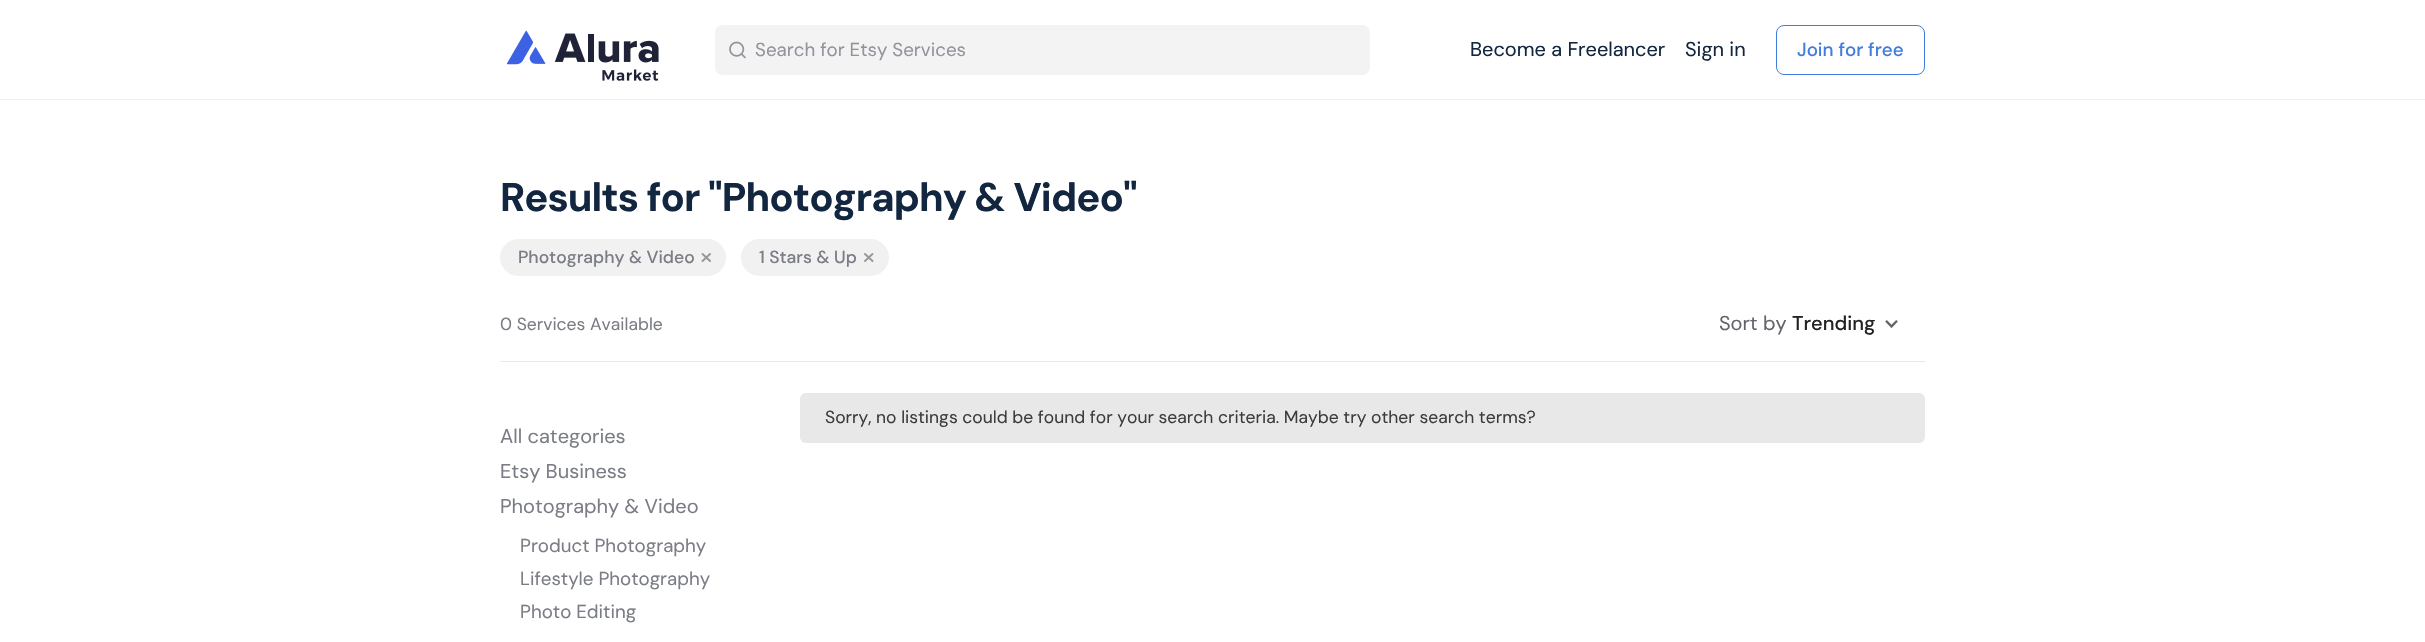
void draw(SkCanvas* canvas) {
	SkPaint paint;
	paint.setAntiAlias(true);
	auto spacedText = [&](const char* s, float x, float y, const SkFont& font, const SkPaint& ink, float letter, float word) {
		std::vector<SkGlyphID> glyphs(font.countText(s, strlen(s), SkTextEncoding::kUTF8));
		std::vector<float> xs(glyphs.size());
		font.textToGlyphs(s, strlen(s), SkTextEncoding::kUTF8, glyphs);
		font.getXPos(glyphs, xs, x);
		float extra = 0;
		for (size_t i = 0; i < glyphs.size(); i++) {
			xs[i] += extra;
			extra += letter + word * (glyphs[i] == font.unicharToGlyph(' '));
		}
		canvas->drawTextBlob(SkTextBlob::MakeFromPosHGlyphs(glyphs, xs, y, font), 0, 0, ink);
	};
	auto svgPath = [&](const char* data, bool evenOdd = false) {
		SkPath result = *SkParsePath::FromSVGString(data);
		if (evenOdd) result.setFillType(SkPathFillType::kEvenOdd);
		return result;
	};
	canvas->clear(0xffffffff);
	paint.setColor(0xffedf2f9);
	canvas->drawRect(SkRect::MakeXYWH(0, 99, 2425, 1), paint);
	canvas->drawImageRect(SkImages::DeferredFromEncodedData(SkData::MakeFromFileName("img1.png")), SkRect::MakeXYWH(506, 30, 153, 51), SkSamplingOptions());
	paint.setColor(0xfff3f3f3);
	canvas->drawRoundRect(SkRect::MakeXYWH(715, 25, 655, 50), 8, 8, paint);
	canvas->drawImageRect(SkImages::DeferredFromEncodedData(SkData::MakeFromFileName("img2.png")), SkRect::MakeXYWH(729, 41, 17, 18), SkSamplingOptions());
	SkFont f1(fontMgr->matchFamilyStyle("DM Sans", SkFontStyle::Normal()), 18.75);
	f1.setSubpixel(true);
	paint.setColor(0xff94939d);
	canvas->drawString("Search for Etsy Services", 755, 56, f1, paint);
	SkFont f2(fontMgr->matchFamilyStyle("DM Sans", SkFontStyle::Normal()), 20);
	f2.setSubpixel(true);
	paint.setColor(0xff12263f);
	canvas->drawString("Become a Freelancer", 1470, 56, f2, paint);
	canvas->drawString("Sign in", 1685, 56, f2, paint);
	paint.setStroke(true);
	paint.setStrokeWidth(1);
	paint.setColor(0xff407cde);
	canvas->drawRoundRect(SkRect::MakeXYWH(1776.5, 25.5, 148, 49), 7.5, 7.5, paint);
	SkFont f3(fontMgr->matchFamilyStyle("DM Sans", SkFontStyle(500, SkFontStyle::kNormal_Width, SkFontStyle::kUpright_Slant)), 18.75);
	f3.setSubpixel(true);
	paint.setStroke(false);
	canvas->drawString("Join for free", 1797, 56, f3, paint);
	SkFont f4(fontMgr->matchFamilyStyle("DM Sans", SkFontStyle::Bold()), 40);
	f4.setSubpixel(true);
	paint.setColor(0xff12263f);
	spacedText("Results for \"Photography & Video\"", 500, 211, f4, paint, -0.9, 0);
	paint.setColor(0xfff1f1f2);
	canvas->drawRoundRect(SkRect::MakeXYWH(500, 239, 226, 37), 18.5, 18.5, paint);
	SkFont f5(fontMgr->matchFamilyStyle("DM Sans", SkFontStyle(500, SkFontStyle::kNormal_Width, SkFontStyle::kUpright_Slant)), 17.5);
	f5.setSubpixel(true);
	paint.setColor(0xff7a7d85);
	canvas->drawString("Photography & Video", 518, 263, f5, paint);
	paint.setStroke(true);
	paint.setStrokeWidth(1.9);
	paint.setStrokeCap(SkPaint::kRound_Cap);
	paint.setStrokeJoin(SkPaint::kRound_Join);
	paint.setColor(0xff95979d);
	canvas->drawPath(svgPath("M710 254L702.5 261M702.5 254L710 261"), paint);
	paint.setStroke(false);
	paint.setColor(0xfff1f1f2);
	canvas->drawRoundRect(SkRect::MakeXYWH(741, 239, 148, 37), 18.5, 18.5, paint);
	paint.setColor(0xff7a7d85);
	canvas->drawString("1 Stars & Up", 759, 263, f5, paint);
	paint.setStroke(true);
	paint.setColor(0xff95979d);
	canvas->drawPath(svgPath("M872.5 254L865 261M865 254L872.5 261"), paint);
	paint.setStroke(false);
	paint.setColor(0xffe3ebf6);
	canvas->drawRect(SkRect::MakeXYWH(500, 361, 1425, 1), paint);
	SkFont f6(fontMgr->matchFamilyStyle("DM Sans", SkFontStyle::Normal()), 17.5);
	f6.setSubpixel(true);
	paint.setColor(0xff7a7d85);
	canvas->drawString("0 Services Available", 500, 330, f6, paint);
	paint.setColor(0xff62646a);
	canvas->drawString("Sort by", 1719, 330, f2, paint);
	SkFont f7(fontMgr->matchFamilyStyle("DM Sans", SkFontStyle(500, SkFontStyle::kNormal_Width, SkFontStyle::kUpright_Slant)), 20);
	f7.setSubpixel(true);
	paint.setColor(0xff222325);
	canvas->drawString("Trending", 1792, 330, f7, paint);
	canvas->drawImageRect(SkImages::DeferredFromEncodedData(SkData::MakeFromFileName("img3.png")), SkRect::MakeXYWH(1885, 320, 13, 9), SkSamplingOptions());
	paint.setColor(0xffe8e8e8);
	canvas->drawRoundRect(SkRect::MakeXYWH(800, 393, 1125, 50), 6, 6, paint);
	paint.setColor(0xff3c3c3c);
	canvas->drawString("Sorry, no listings could be found for your search criteria. Maybe try other search terms?", 825, 423, f6, paint);
	paint.setColor(0xff7a7d85);
	canvas->drawString("All categories", 500, 443, f2, paint);
	canvas->drawString("Etsy Business", 500, 478, f2, paint);
	canvas->drawString("Photography & Video", 500, 513, f2, paint);
	canvas->drawString("Product Photography", 520, 552, f1, paint);
	canvas->drawString("Lifestyle Photography", 520, 585, f1, paint);
	canvas->drawString("Photo Editing", 520, 618, f1, paint);
}
